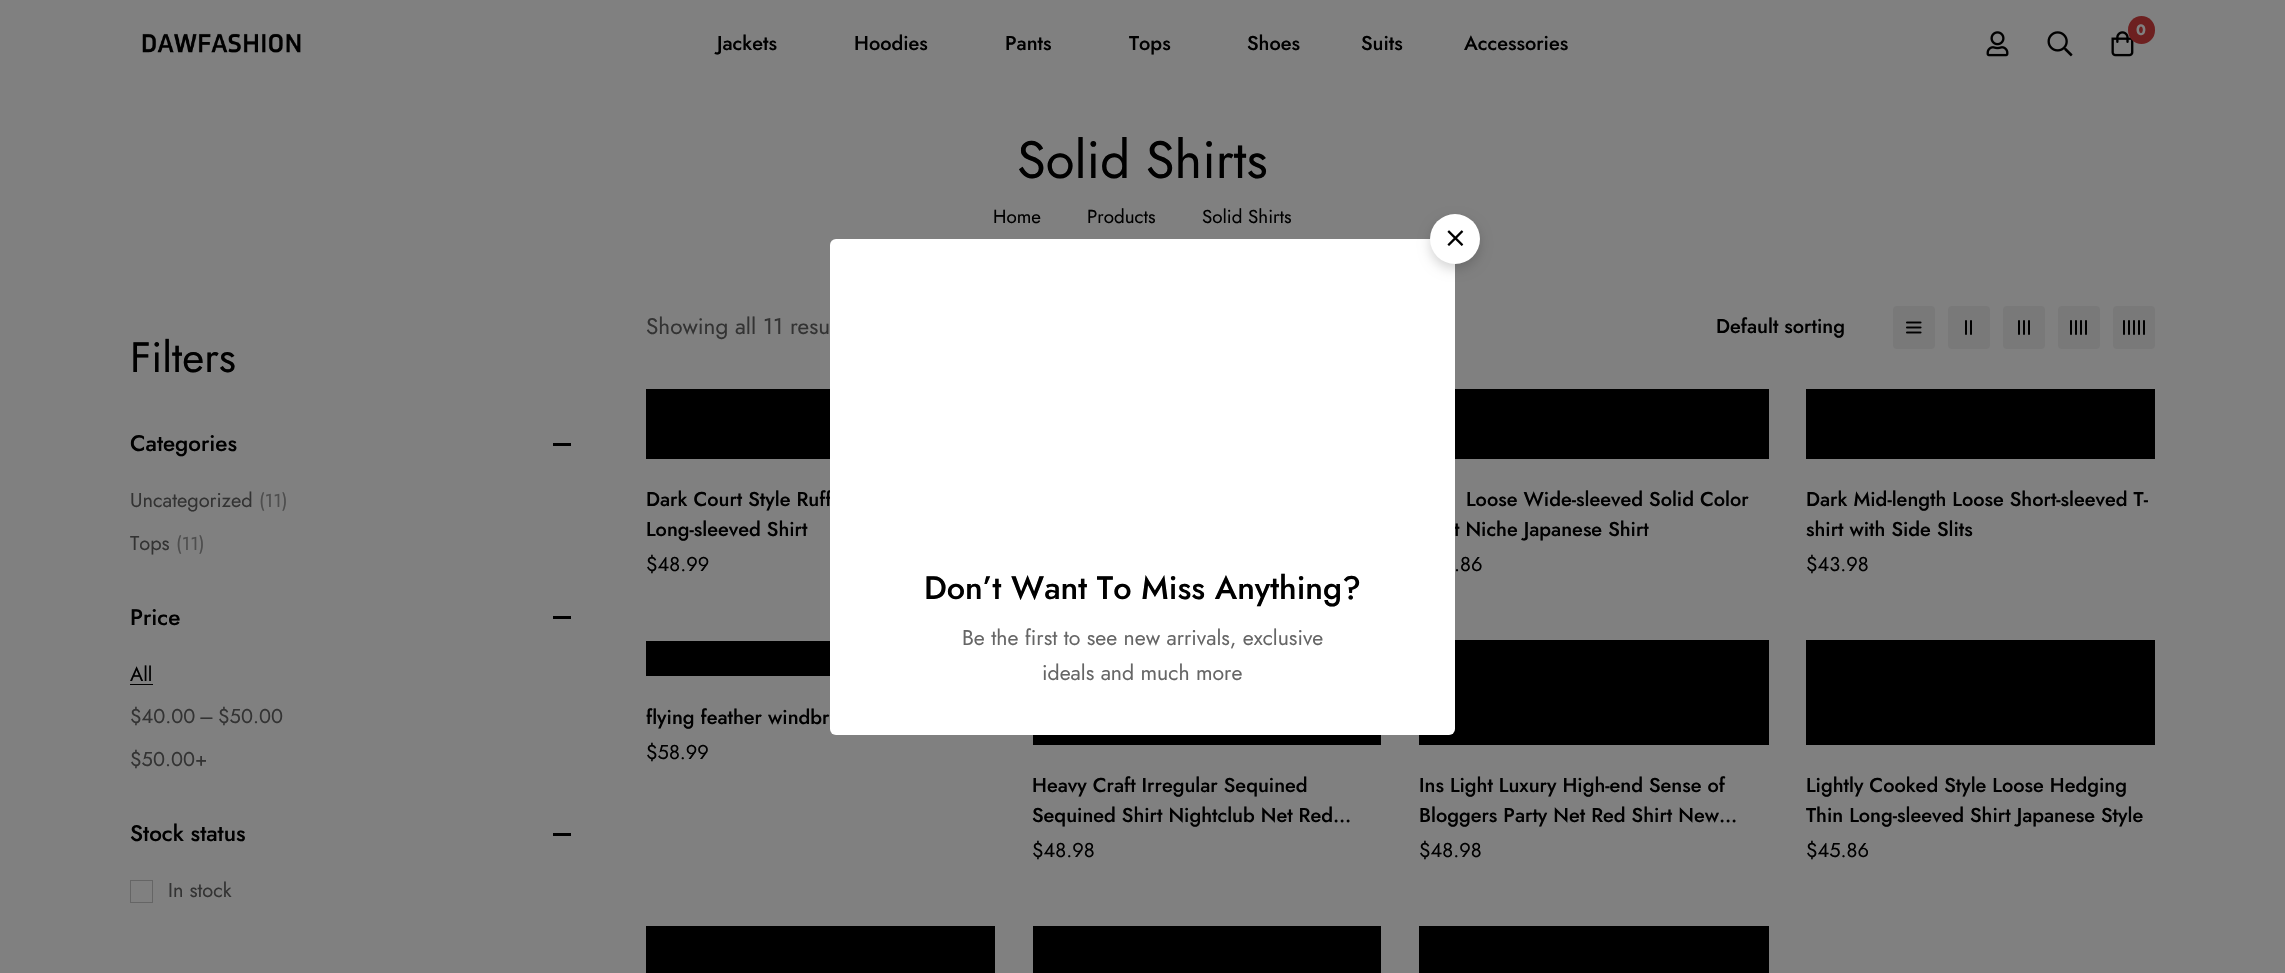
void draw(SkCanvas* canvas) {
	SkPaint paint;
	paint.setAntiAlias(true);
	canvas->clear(0xff808080);
	canvas->drawImageRect(SkImages::DeferredFromEncodedData(SkData::MakeFromFileName("img1.png")), SkRect::MakeXYWH(1986, 31, 23, 26), SkSamplingOptions());
	canvas->drawImageRect(SkImages::DeferredFromEncodedData(SkData::MakeFromFileName("img2.png")), SkRect::MakeXYWH(2047, 31, 26, 26), SkSamplingOptions());
	canvas->drawImageRect(SkImages::DeferredFromEncodedData(SkData::MakeFromFileName("img3.png")), SkRect::MakeXYWH(2111, 31, 23, 26), SkSamplingOptions());
	paint.setColor(0xff6d2020);
	canvas->drawRoundRect(SkRect::MakeXYWH(2128, 16, 27, 28), 13.5, 13.5, paint);
	SkFont f1(fontMgr->matchFamilyStyle("Jost", SkFontStyle::Bold()), 15);
	f1.setSubpixel(true);
	paint.setColor(0xff808080);
	canvas->drawString("0", 2136, 35, f1, paint);
	canvas->drawImageRect(SkImages::DeferredFromEncodedData(SkData::MakeFromFileName("img4.png")), SkRect::MakeXYWH(142, 33, 159, 20), SkSamplingOptions());
	SkFont f2(fontMgr->matchFamilyStyle("Jost", SkFontStyle(500, SkFontStyle::kNormal_Width, SkFontStyle::kUpright_Slant)), 20);
	f2.setSubpixel(true);
	paint.setColor(0xff000000);
	canvas->drawString("Jackets", 717, 50, f2, paint);
	canvas->drawString("Hoodies", 854, 50, f2, paint);
	canvas->drawString("Pants", 1005, 50, f2, paint);
	canvas->drawString("Tops", 1129, 50, f2, paint);
	canvas->drawString("Shoes", 1247, 50, f2, paint);
	canvas->drawString("Suits", 1361, 50, f2, paint);
	canvas->drawString("Accessories", 1464, 50, f2, paint);
	SkFont f3(fontMgr->matchFamilyStyle("Jost", SkFontStyle::Normal()), 52.5);
	f3.setSubpixel(true);
	canvas->drawString("Solid Shirts", 1017, 178, f3, paint);
	SkFont f4(fontMgr->matchFamilyStyle("Jost", SkFontStyle::Normal()), 18.75);
	f4.setSubpixel(true);
	canvas->drawString("Home", 993, 223, f4, paint);
	canvas->drawString("Products", 1087, 223, f4, paint);
	canvas->drawString("Solid Shirts", 1202, 223, f4, paint);
	SkFont f5(fontMgr->matchFamilyStyle("Jost", SkFontStyle::Normal()), 42.5);
	f5.setSubpixel(true);
	canvas->drawString("Filters", 130, 372, f5, paint);
	SkFont f6(fontMgr->matchFamilyStyle("Jost", SkFontStyle(500, SkFontStyle::kNormal_Width, SkFontStyle::kUpright_Slant)), 22.5);
	f6.setSubpixel(true);
	canvas->drawString("Categories", 130, 451, f6, paint);
	canvas->drawRect(SkRect::MakeXYWH(553, 443, 18, 3), paint);
	SkFont f7(fontMgr->matchFamilyStyle("Jost", SkFontStyle::Normal()), 20);
	f7.setSubpixel(true);
	paint.setColor(0xff333333);
	canvas->drawString("Uncategorized", 130, 507, f7, paint);
	paint.setColor(0xff4e4e4e);
	canvas->drawString("(11)", 259, 507, f4, paint);
	paint.setColor(0xff333333);
	canvas->drawString("Tops", 130, 550, f7, paint);
	paint.setColor(0xff4e4e4e);
	canvas->drawString("(11)", 176, 550, f4, paint);
	paint.setColor(0xff000000);
	canvas->drawString("Price", 130, 625, f6, paint);
	canvas->drawRect(SkRect::MakeXYWH(553, 616, 18, 3), paint);
	canvas->drawString("All", 130, 681, f7, paint);
	canvas->drawRect(SkRect::MakeXYWH(130, 684, 23, 1), paint);
	paint.setColor(0xff333333);
	canvas->drawString("$40.00", 130, 723, f7, paint);
	canvas->drawString("–", 199, 723, f7, paint);
	canvas->drawString("$50.00", 218, 723, f7, paint);
	canvas->drawString("$50.00+", 130, 766, f7, paint);
	paint.setColor(0xff000000);
	canvas->drawString("Stock status", 130, 841, f6, paint);
	canvas->drawRect(SkRect::MakeXYWH(553, 833, 18, 3), paint);
	paint.setStroke(true);
	paint.setStrokeWidth(1);
	paint.setColor(0xff656565);
	canvas->drawRect(SkRect::MakeXYWH(130.5, 880.5, 22, 22), paint);
	paint.setStroke(false);
	paint.setColor(0xff333333);
	canvas->drawString("In stock", 168, 897, f7, paint);
	SkFont f8(fontMgr->matchFamilyStyle("Jost", SkFontStyle::Normal()), 22.5);
	f8.setSubpixel(true);
	canvas->drawString("Showing all 11 resu", 646, 334, f8, paint);
	paint.setColor(0xff000000);
	canvas->drawString("Default sorting", 1716, 333, f2, paint);
	paint.setColor(0xff797979);
	canvas->drawRoundRect(SkRect::MakeXYWH(1893, 306, 42, 43), 4, 4, paint);
	canvas->drawImageRect(SkImages::DeferredFromEncodedData(SkData::MakeFromFileName("img5.png")), SkRect::MakeXYWH(1906, 321, 16, 13), SkSamplingOptions());
	canvas->drawRoundRect(SkRect::MakeXYWH(1948, 306, 42, 43), 4, 4, paint);
	paint.setColor(0xff000000);
	canvas->drawRoundRect(SkRect::MakeXYWH(1965, 320, 2, 15), 1, 1, paint);
	canvas->drawRoundRect(SkRect::MakeXYWH(1970, 320, 2, 15), 1, 1, paint);
	paint.setColor(0xff797979);
	canvas->drawRoundRect(SkRect::MakeXYWH(2003, 306, 42, 43), 4, 4, paint);
	paint.setColor(0xff000000);
	canvas->drawRoundRect(SkRect::MakeXYWH(2018, 320, 2, 15), 1, 1, paint);
	canvas->drawRoundRect(SkRect::MakeXYWH(2023, 320, 2, 15), 1, 1, paint);
	canvas->drawRoundRect(SkRect::MakeXYWH(2028, 320, 2, 15), 1, 1, paint);
	paint.setColor(0xff797979);
	canvas->drawRoundRect(SkRect::MakeXYWH(2058, 306, 42, 43), 4, 4, paint);
	canvas->drawImageRect(SkImages::DeferredFromEncodedData(SkData::MakeFromFileName("img6.png")), SkRect::MakeXYWH(2070, 320, 17, 15), SkSamplingOptions());
	canvas->drawRoundRect(SkRect::MakeXYWH(2113, 306, 42, 43), 4, 4, paint);
	canvas->drawImageRect(SkImages::DeferredFromEncodedData(SkData::MakeFromFileName("img7.png")), SkRect::MakeXYWH(2123, 320, 22, 15), SkSamplingOptions());
	paint.setColor(0xff000000);
	canvas->drawRect(SkRect::MakeXYWH(646, 389, 184, 70), paint);
	canvas->drawString("Dark Court Style Ruff", 646, 506, f2, paint);
	canvas->drawString("Long-sleeved Shirt", 646, 536, f2, paint);
	canvas->drawString("$48.99", 646, 571, f7, paint);
	canvas->drawRect(SkRect::MakeXYWH(1455, 389, 314, 70), paint);
	canvas->drawString("Loose Wide-sleeved Solid Color", 1466, 506, f2, paint);
	canvas->drawString("t Niche Japanese Shirt", 1454, 536, f2, paint);
	canvas->drawString(".86", 1454, 571, f7, paint);
	canvas->drawRect(SkRect::MakeXYWH(1806, 389, 349, 70), paint);
	canvas->drawString("Dark Mid-length Loose Short-sleeved T-", 1806, 506, f2, paint);
	canvas->drawString("shirt with Side Slits", 1806, 536, f2, paint);
	canvas->drawString("$43.98", 1806, 571, f7, paint);
	canvas->drawRect(SkRect::MakeXYWH(646, 641, 184, 35), paint);
	canvas->drawString("flying feather windbr", 646, 724, f2, paint);
	canvas->drawString("$58.99", 646, 759, f7, paint);
	canvas->drawRect(SkRect::MakeXYWH(1033, 735, 348, 10), paint);
	canvas->drawString("Heavy Craft Irregular Sequined", 1032, 792, f2, paint);
	canvas->drawString("Sequined Shirt Nightclub Net Red…", 1032, 822, f2, paint);
	canvas->drawString("$48.98", 1032, 857, f7, paint);
	canvas->drawRect(SkRect::MakeXYWH(1419, 640, 350, 105), paint);
	canvas->drawString("Ins Light Luxury High-end Sense of", 1419, 792, f2, paint);
	canvas->drawString("Bloggers Party Net Red Shirt New…", 1419, 822, f2, paint);
	canvas->drawString("$48.98", 1419, 857, f7, paint);
	canvas->drawRect(SkRect::MakeXYWH(1806, 640, 349, 105), paint);
	canvas->drawString("Lightly Cooked Style Loose Hedging", 1806, 792, f2, paint);
	canvas->drawString("Thin Long-sleeved Shirt Japanese Style", 1806, 822, f2, paint);
	canvas->drawString("$45.86", 1806, 857, f7, paint);
	canvas->drawRect(SkRect::MakeXYWH(646, 926, 349, 47), paint);
	canvas->drawRect(SkRect::MakeXYWH(1033, 926, 348, 47), paint);
	canvas->drawRect(SkRect::MakeXYWH(1419, 926, 350, 47), paint);
	paint.setColor(0xffffffff);
	canvas->drawRoundRect(SkRect::MakeXYWH(830, 239, 625, 496), 6, 6, paint);
	paint.setColor(0x2b000000);
	paint.setMaskFilter(SkMaskFilter::MakeBlur(kNormal_SkBlurStyle, 6));
	canvas->drawRoundRect(SkRect::MakeXYWH(1430, 219, 50, 50), 25, 25, paint);
	paint.setMaskFilter(nullptr);
	paint.setColor(0xffffffff);
	canvas->drawCircle(1455, 239, 25, paint);
	canvas->drawImageRect(SkImages::DeferredFromEncodedData(SkData::MakeFromFileName("img8.png")), SkRect::MakeXYWH(1447, 230, 17, 16), SkSamplingOptions());
	SkFont f9(fontMgr->matchFamilyStyle("Jost", SkFontStyle(500, SkFontStyle::kNormal_Width, SkFontStyle::kUpright_Slant)), 32.5);
	f9.setSubpixel(true);
	paint.setColor(0xff000000);
	canvas->drawString("Don’t Want To Miss Anything?", 924, 599, f9, paint);
	SkFont f10(fontMgr->matchFamilyStyle("Jost", SkFontStyle::Normal()), 21.25);
	f10.setSubpixel(true);
	paint.setColor(0xff666666);
	canvas->drawString("Be the first to see new arrivals, exclusive", 962, 645, f10, paint);
	canvas->drawString("ideals and much more", 1042, 680, f10, paint);
}
